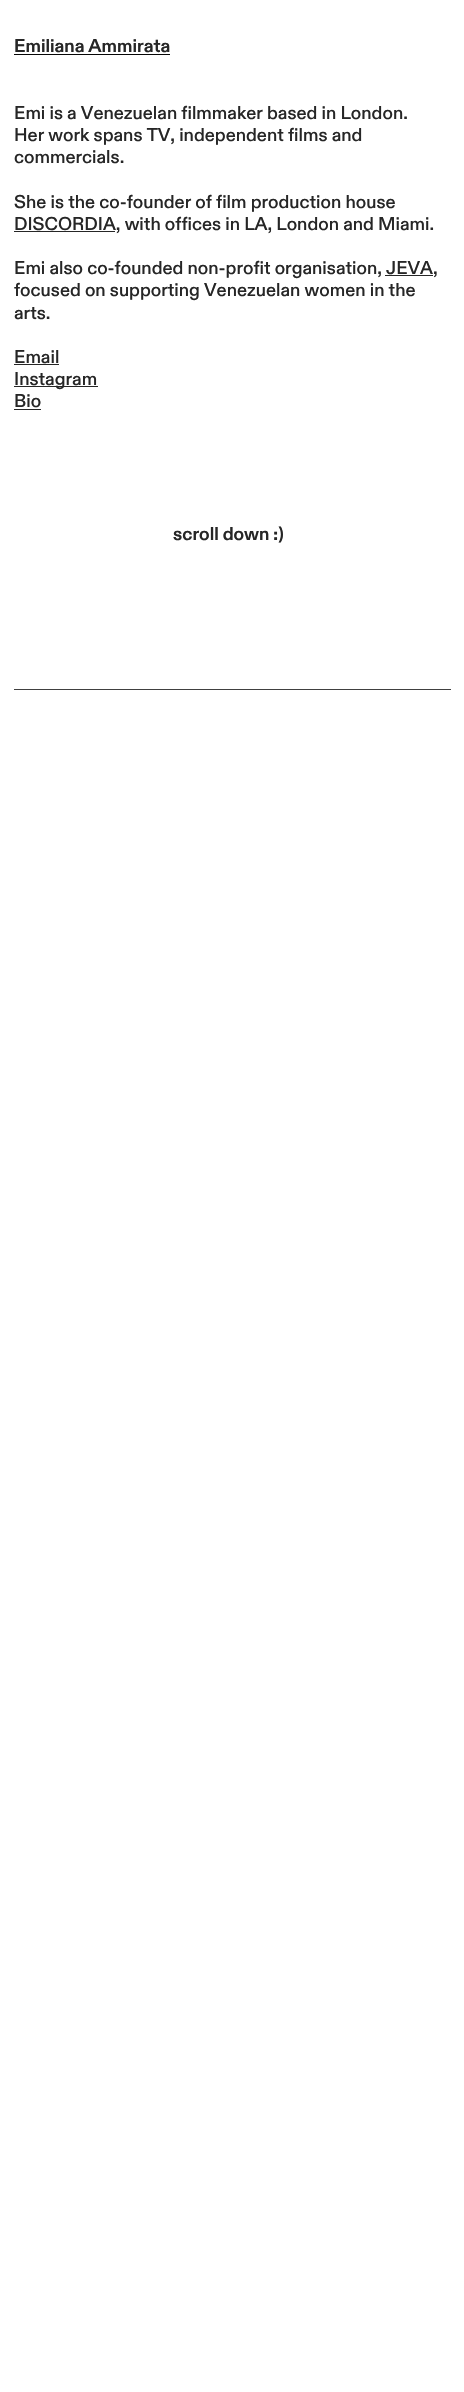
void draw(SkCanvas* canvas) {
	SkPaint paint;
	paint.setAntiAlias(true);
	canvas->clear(0xffffffff);
	SkFont f1(fontMgr->matchFamilyStyle("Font", SkFontStyle::Bold()), 18.5);
	f1.setSubpixel(true);
	paint.setColor(0xff262626);
	canvas->drawString("Emiliana Ammirata", 14, 52, f1, paint);
	paint.setColor(0xff060606);
	canvas->drawRect(SkRect::MakeXYWH(14, 54, 156, 1), paint);
	SkFont f2(fontMgr->matchFamilyStyle("Font", SkFontStyle(500, SkFontStyle::kNormal_Width, SkFontStyle::kUpright_Slant)), 18.5);
	f2.setSubpixel(true);
	paint.setColor(0xff262626);
	canvas->drawString("Emi is a Venezuelan filmmaker based in London.", 14, 119, f2, paint);
	canvas->drawString("Her work spans TV, independent films and", 14, 141, f2, paint);
	canvas->drawString("commercials.", 14, 163, f2, paint);
	canvas->drawString("She is the co-founder of film production house", 14, 208, f2, paint);
	canvas->drawRect(SkRect::MakeXYWH(14, 231, 101, 1), paint);
	canvas->drawString("DISCORDIA, with offices in LA, London and Miami.", 14, 230, f2, paint);
	canvas->drawString("Emi also co-founded non-profit organisation, JEVA,", 14, 274, f2, paint);
	canvas->drawRect(SkRect::MakeXYWH(385, 275, 48, 1), paint);
	canvas->drawString("focused on supporting Venezuelan women in the", 14, 296, f2, paint);
	canvas->drawString("arts.", 14, 319, f2, paint);
	canvas->drawString("Email", 14, 363, f2, paint);
	canvas->drawRect(SkRect::MakeXYWH(14, 364, 45, 1), paint);
	canvas->drawRect(SkRect::MakeXYWH(14, 386, 84, 1), paint);
	canvas->drawString("Instagram", 14, 385, f2, paint);
	canvas->drawString("Bio", 14, 407, f2, paint);
	canvas->drawRect(SkRect::MakeXYWH(14, 409, 27, 1), paint);
	canvas->drawString("scroll down :)", 173, 540, f1, paint);
	paint.setColor(0xff404040);
	canvas->drawRect(SkRect::MakeXYWH(14, 689, 437, 1), paint);
}
